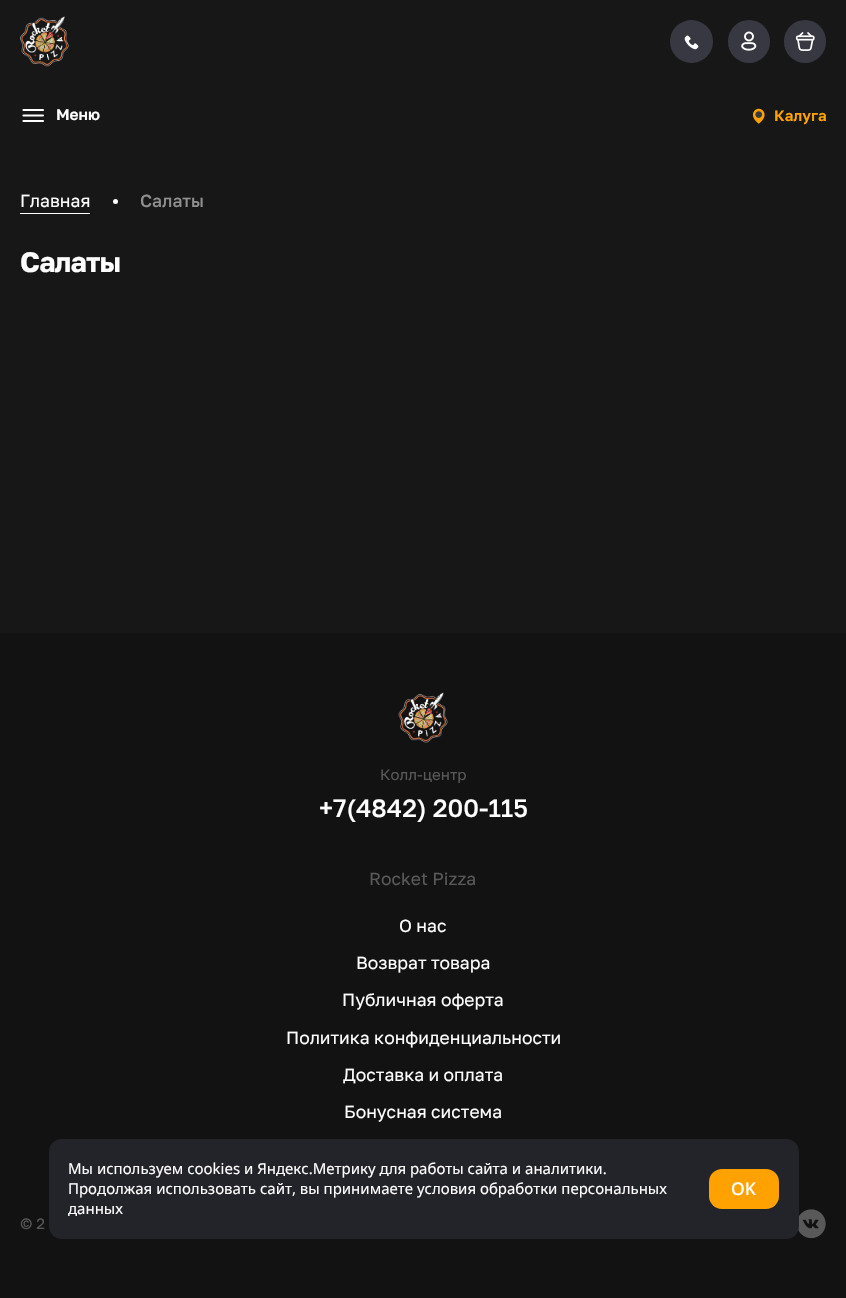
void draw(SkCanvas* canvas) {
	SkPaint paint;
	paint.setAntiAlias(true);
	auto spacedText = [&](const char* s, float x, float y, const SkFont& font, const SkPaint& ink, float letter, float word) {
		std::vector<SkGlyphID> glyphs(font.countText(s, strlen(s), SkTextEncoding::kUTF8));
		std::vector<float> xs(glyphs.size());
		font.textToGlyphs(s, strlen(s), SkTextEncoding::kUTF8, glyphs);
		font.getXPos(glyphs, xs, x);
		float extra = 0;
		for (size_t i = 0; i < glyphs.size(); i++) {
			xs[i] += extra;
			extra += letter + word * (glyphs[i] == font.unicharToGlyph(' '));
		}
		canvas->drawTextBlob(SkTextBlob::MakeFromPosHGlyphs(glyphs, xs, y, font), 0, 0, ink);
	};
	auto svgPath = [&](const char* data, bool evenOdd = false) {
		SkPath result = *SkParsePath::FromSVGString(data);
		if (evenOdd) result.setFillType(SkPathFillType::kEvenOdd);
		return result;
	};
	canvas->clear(0xff171717);
	canvas->drawImageRect(SkImages::DeferredFromEncodedData(SkData::MakeFromFileName("img1.png")), SkRect::MakeXYWH(20, 16, 49, 51), SkSamplingOptions());
	paint.setColor(0xff383843);
	canvas->drawCircle(691.5, 41.5, 21.5, paint);
	canvas->drawImageRect(SkImages::DeferredFromEncodedData(SkData::MakeFromFileName("img2.png")), SkRect::MakeXYWH(684, 35, 15, 15), SkSamplingOptions());
	canvas->drawRoundRect(SkRect::MakeXYWH(728, 20, 42, 43), 21, 21, paint);
	canvas->drawImageRect(SkImages::DeferredFromEncodedData(SkData::MakeFromFileName("img3.png")), SkRect::MakeXYWH(741, 31, 16, 20), SkSamplingOptions());
	canvas->drawRoundRect(SkRect::MakeXYWH(784, 20, 42, 43), 21, 21, paint);
	canvas->drawImageRect(SkImages::DeferredFromEncodedData(SkData::MakeFromFileName("img4.png")), SkRect::MakeXYWH(795, 32, 20, 19), SkSamplingOptions());
	paint.setStroke(true);
	paint.setStrokeWidth(2.2);
	paint.setStrokeCap(SkPaint::kRound_Cap);
	paint.setColor(0xffffffff);
	canvas->drawPath(svgPath("M23.5 110H43M23.5 115.5H43M23.5 121H43"), paint);
	SkFont f1(fontMgr->matchFamilyStyle("Golos Text", SkFontStyle(600, SkFontStyle::kNormal_Width, SkFontStyle::kUpright_Slant)), 15.5);
	f1.setSubpixel(true);
	paint.setStroke(false);
	canvas->drawString("Меню", 56, 120, f1, paint);
	canvas->drawImageRect(SkImages::DeferredFromEncodedData(SkData::MakeFromFileName("img5.png")), SkRect::MakeXYWH(752, 108, 13, 16), SkSamplingOptions());
	SkFont f2(fontMgr->matchFamilyStyle("Golos Text", SkFontStyle(600, SkFontStyle::kNormal_Width, SkFontStyle::kUpright_Slant)), 15);
	f2.setSubpixel(true);
	paint.setColor(0xffffa200);
	canvas->drawString("Калуга", 774, 121, f2, paint);
	SkFont f3(fontMgr->matchFamilyStyle("Golos Text", SkFontStyle::Normal()), 17.5);
	f3.setSubpixel(true);
	paint.setColor(0xffffffff);
	canvas->drawString("Главная", 20, 207, f3, paint);
	canvas->drawRect(SkRect::MakeXYWH(20, 213, 70, 1), paint);
	canvas->drawCircle(115.5, 201.5, 2.5, paint);
	SkFont f4(fontMgr->matchFamilyStyle("Golos Text", SkFontStyle(500, SkFontStyle::kNormal_Width, SkFontStyle::kUpright_Slant)), 17.5);
	f4.setSubpixel(true);
	paint.setColor(0xff909092);
	canvas->drawString("Салаты", 140, 207, f4, paint);
	SkFont f5(fontMgr->matchFamilyStyle("Golos Text", SkFontStyle::Bold()), 28);
	f5.setSubpixel(true);
	paint.setColor(0xffffffff);
	spacedText("Салаты", 20, 272, f5, paint, -0.75, 0);
	paint.setColor(0xff121212);
	canvas->drawRect(SkRect::MakeXYWH(0, 633, 846, 665), paint);
	canvas->drawImageRect(SkImages::DeferredFromEncodedData(SkData::MakeFromFileName("img6.png")), SkRect::MakeXYWH(398, 692, 50, 51), SkSamplingOptions());
	SkFont f6(fontMgr->matchFamilyStyle("Golos Text", SkFontStyle::Normal()), 15);
	f6.setSubpixel(true);
	paint.setColor(0xff595959);
	canvas->drawString("Колл-центр", 380, 780, f6, paint);
	SkFont f7(fontMgr->matchFamilyStyle("Golos Text", SkFontStyle(500, SkFontStyle::kNormal_Width, SkFontStyle::kUpright_Slant)), 25);
	f7.setSubpixel(true);
	paint.setColor(0xffffffff);
	canvas->drawString("+7(4842) 200-115", 319, 817, f7, paint);
	paint.setColor(0xff595959);
	canvas->drawString("Rocket Pizza", 369, 885, f3, paint);
	paint.setColor(0xffffffff);
	canvas->drawString("О нас", 399, 932, f3, paint);
	canvas->drawString("Возврат товара", 356, 969, f3, paint);
	canvas->drawString("Публичная оферта", 342, 1006, f3, paint);
	canvas->drawString("Политика конфиденциальности", 286, 1044, f3, paint);
	canvas->drawString("Доставка и оплата", 343, 1081, f3, paint);
	canvas->drawString("Бонусная система", 344, 1118, f3, paint);
	paint.setColor(0xff595959);
	canvas->drawString("© 2", 20, 1229, f6, paint);
	canvas->drawImageRect(SkImages::DeferredFromEncodedData(SkData::MakeFromFileName("img7.png")), SkRect::MakeXYWH(798, 1209, 28, 30), SkSamplingOptions());
	paint.setColor(0xff23232a);
	canvas->drawRoundRect(SkRect::MakeXYWH(49, 1139, 750, 100), 13, 13, paint);
	SkFont f8(fontMgr->matchFamilyStyle("Noto Sans", SkFontStyle::Normal()), 15);
	f8.setSubpixel(true);
	paint.setColor(0xffffffff);
	canvas->drawString("Мы используем cookies и Яндекс.Метрику для работы сайта и аналитики.", 68, 1174, f8, paint);
	canvas->drawString("Продолжая использовать сайт, вы принимаете условия обработки персональных", 68, 1194, f8, paint);
	canvas->drawString("данных", 68, 1214, f8, paint);
	paint.setColor(0xffffa200);
	canvas->drawRoundRect(SkRect::MakeXYWH(709, 1169, 70, 40), 13, 13, paint);
	SkFont f9(fontMgr->matchFamilyStyle("Noto Sans", SkFontStyle(500, SkFontStyle::kNormal_Width, SkFontStyle::kUpright_Slant)), 17.5);
	f9.setSubpixel(true);
	paint.setColor(0xffffffff);
	canvas->drawString("OK", 731, 1195, f9, paint);
}
